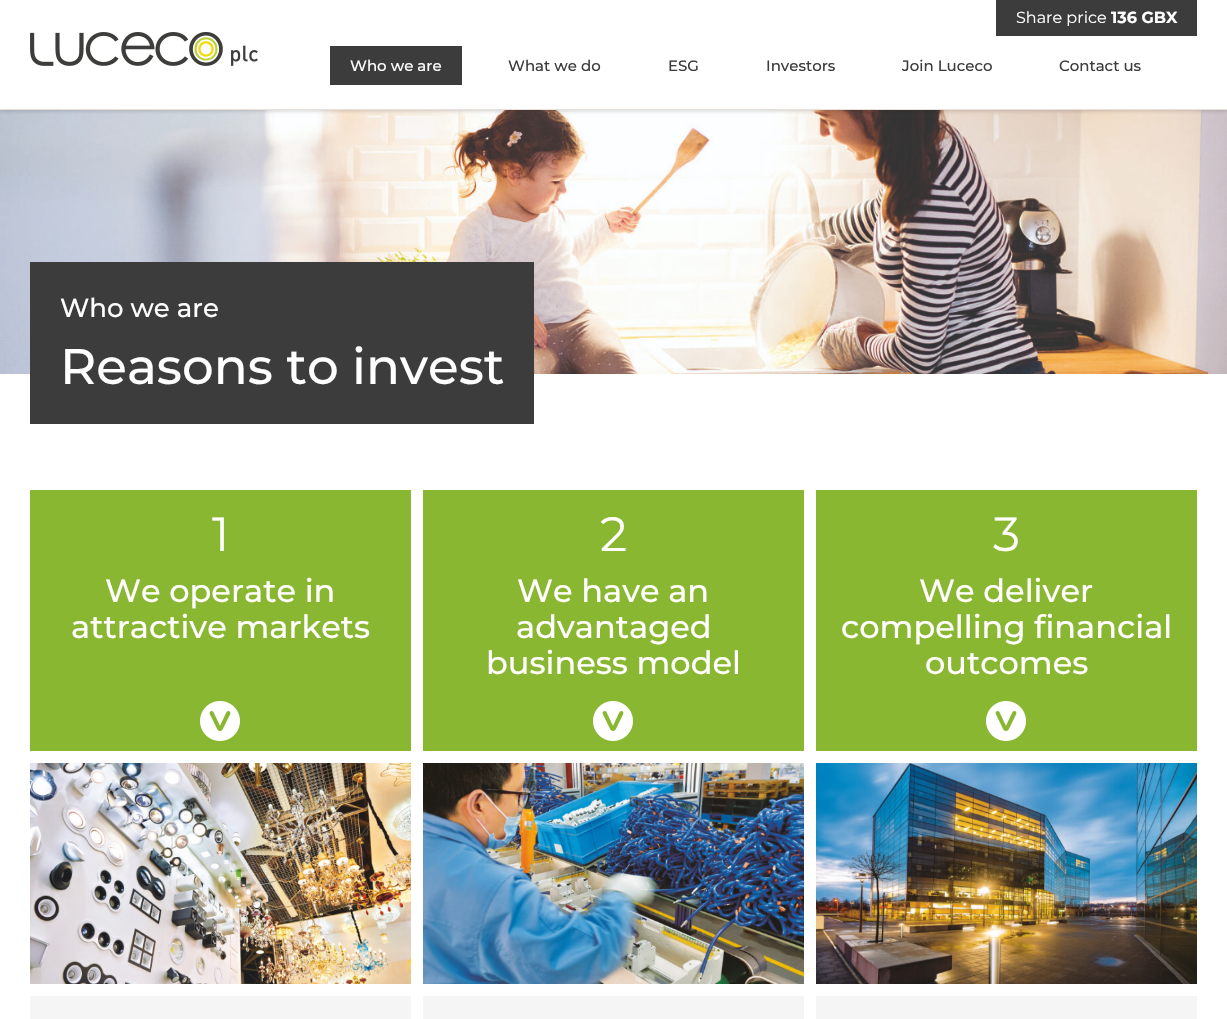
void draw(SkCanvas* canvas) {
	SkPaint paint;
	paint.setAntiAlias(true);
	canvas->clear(0xffffffff);
	canvas->drawImageRect(SkImages::DeferredFromEncodedData(SkData::MakeFromFileName("img2.png")), SkRect::MakeXYWH(0, 110, 1227, 264), SkSamplingOptions());
	paint.setColor(0x331e1e1e);
	paint.setMaskFilter(SkMaskFilter::MakeBlur(kNormal_SkBlurStyle, 2));
	canvas->drawRect(SkRect::MakeXYWH(0, 1, 1227, 110), paint);
	paint.setMaskFilter(nullptr);
	paint.setColor(0xffffffff);
	canvas->drawRect(SkRect::MakeXYWH(0, 0, 1227, 109), paint);
	paint.setColor(0xffeae0da);
	canvas->drawRect(SkRect::MakeXYWH(0, 109, 1227, 1), paint);
	canvas->drawImageRect(SkImages::DeferredFromEncodedData(SkData::MakeFromFileName("img1.png")), SkRect::MakeXYWH(30, 32, 228, 34), SkSamplingOptions());
	paint.setColor(0xff3c3c3c);
	canvas->drawRect(SkRect::MakeXYWH(996, 0, 201, 36), paint);
	SkFont f1(fontMgr->matchFamilyStyle("Montserrat", SkFontStyle::Normal()), 16);
	f1.setSubpixel(true);
	paint.setColor(0xffffffff);
	canvas->drawString("Share price", 1016, 23, f1, paint);
	SkFont f2(fontMgr->matchFamilyStyle("Montserrat", SkFontStyle::Bold()), 16);
	f2.setSubpixel(true);
	canvas->drawString("136 GBX", 1111, 23, f2, paint);
	paint.setColor(0xff3c3c3c);
	canvas->drawRect(SkRect::MakeXYWH(330, 46, 132, 39), paint);
	SkFont f3(fontMgr->matchFamilyStyle("Montserrat", SkFontStyle(500, SkFontStyle::kNormal_Width, SkFontStyle::kUpright_Slant)), 15);
	f3.setSubpixel(true);
	paint.setColor(0xffffffff);
	canvas->drawString("Who we are", 350, 71, f3, paint);
	paint.setColor(0xff3c3c3c);
	canvas->drawString("What we do", 508, 71, f3, paint);
	canvas->drawString("ESG", 668, 71, f3, paint);
	canvas->drawString("Investors", 766, 71, f3, paint);
	canvas->drawString("Join Luceco", 902, 71, f3, paint);
	canvas->drawString("Contact us", 1059, 71, f3, paint);
	canvas->drawRect(SkRect::MakeXYWH(30, 262, 504, 162), paint);
	SkFont f4(fontMgr->matchFamilyStyle("Montserrat", SkFontStyle(500, SkFontStyle::kNormal_Width, SkFontStyle::kUpright_Slant)), 26);
	f4.setSubpixel(true);
	paint.setColor(0xffffffff);
	canvas->drawString("Who we are", 60, 317, f4, paint);
	SkFont f5(fontMgr->matchFamilyStyle("Montserrat", SkFontStyle(500, SkFontStyle::kNormal_Width, SkFontStyle::kUpright_Slant)), 50);
	f5.setSubpixel(true);
	canvas->drawString("Reasons to invest", 60, 384, f5, paint);
	paint.setColor(0xff8ab731);
	canvas->drawRect(SkRect::MakeXYWH(30, 490, 381, 261), paint);
	canvas->drawImageRect(SkImages::DeferredFromEncodedData(SkData::MakeFromFileName("img3.png")), SkRect::MakeXYWH(200, 701, 40, 40), SkSamplingOptions());
	SkFont f6(fontMgr->matchFamilyStyle("Montserrat", SkFontStyle::Normal()), 48);
	f6.setSubpixel(true);
	paint.setColor(0xffffffff);
	canvas->drawString("1", 212, 551, f6, paint);
	SkFont f7(fontMgr->matchFamilyStyle("Montserrat", SkFontStyle(500, SkFontStyle::kNormal_Width, SkFontStyle::kUpright_Slant)), 32);
	f7.setSubpixel(true);
	canvas->drawString("We operate in", 105, 602, f7, paint);
	canvas->drawString("attractive markets", 71, 638, f7, paint);
	paint.setColor(0xff8ab731);
	canvas->drawRect(SkRect::MakeXYWH(423, 490, 381, 261), paint);
	canvas->drawImageRect(SkImages::DeferredFromEncodedData(SkData::MakeFromFileName("img3.png")), SkRect::MakeXYWH(593, 701, 40, 40), SkSamplingOptions());
	paint.setColor(0xffffffff);
	canvas->drawString("2", 600, 551, f6, paint);
	canvas->drawString("We have an", 517, 602, f7, paint);
	canvas->drawString("advantaged", 516, 638, f7, paint);
	canvas->drawString("business model", 486, 674, f7, paint);
	paint.setColor(0xff8ab731);
	canvas->drawRect(SkRect::MakeXYWH(816, 490, 381, 261), paint);
	canvas->drawImageRect(SkImages::DeferredFromEncodedData(SkData::MakeFromFileName("img3.png")), SkRect::MakeXYWH(986, 701, 40, 40), SkSamplingOptions());
	paint.setColor(0xffffffff);
	canvas->drawString("3", 993, 551, f6, paint);
	canvas->drawString("We deliver", 919, 602, f7, paint);
	canvas->drawString("compelling financial", 841, 638, f7, paint);
	canvas->drawString("outcomes", 925, 674, f7, paint);
	canvas->drawImageRect(SkImages::DeferredFromEncodedData(SkData::MakeFromFileName("img4.png")), SkRect::MakeXYWH(30, 763, 381, 221), SkSamplingOptions());
	canvas->drawImageRect(SkImages::DeferredFromEncodedData(SkData::MakeFromFileName("img5.png")), SkRect::MakeXYWH(423, 763, 381, 221), SkSamplingOptions());
	canvas->drawImageRect(SkImages::DeferredFromEncodedData(SkData::MakeFromFileName("img6.png")), SkRect::MakeXYWH(816, 763, 381, 221), SkSamplingOptions());
	paint.setColor(0xfff5f5f5);
	canvas->drawRect(SkRect::MakeXYWH(30, 996, 381, 23), paint);
	canvas->drawRect(SkRect::MakeXYWH(423, 996, 381, 23), paint);
	canvas->drawRect(SkRect::MakeXYWH(816, 996, 381, 23), paint);
}
